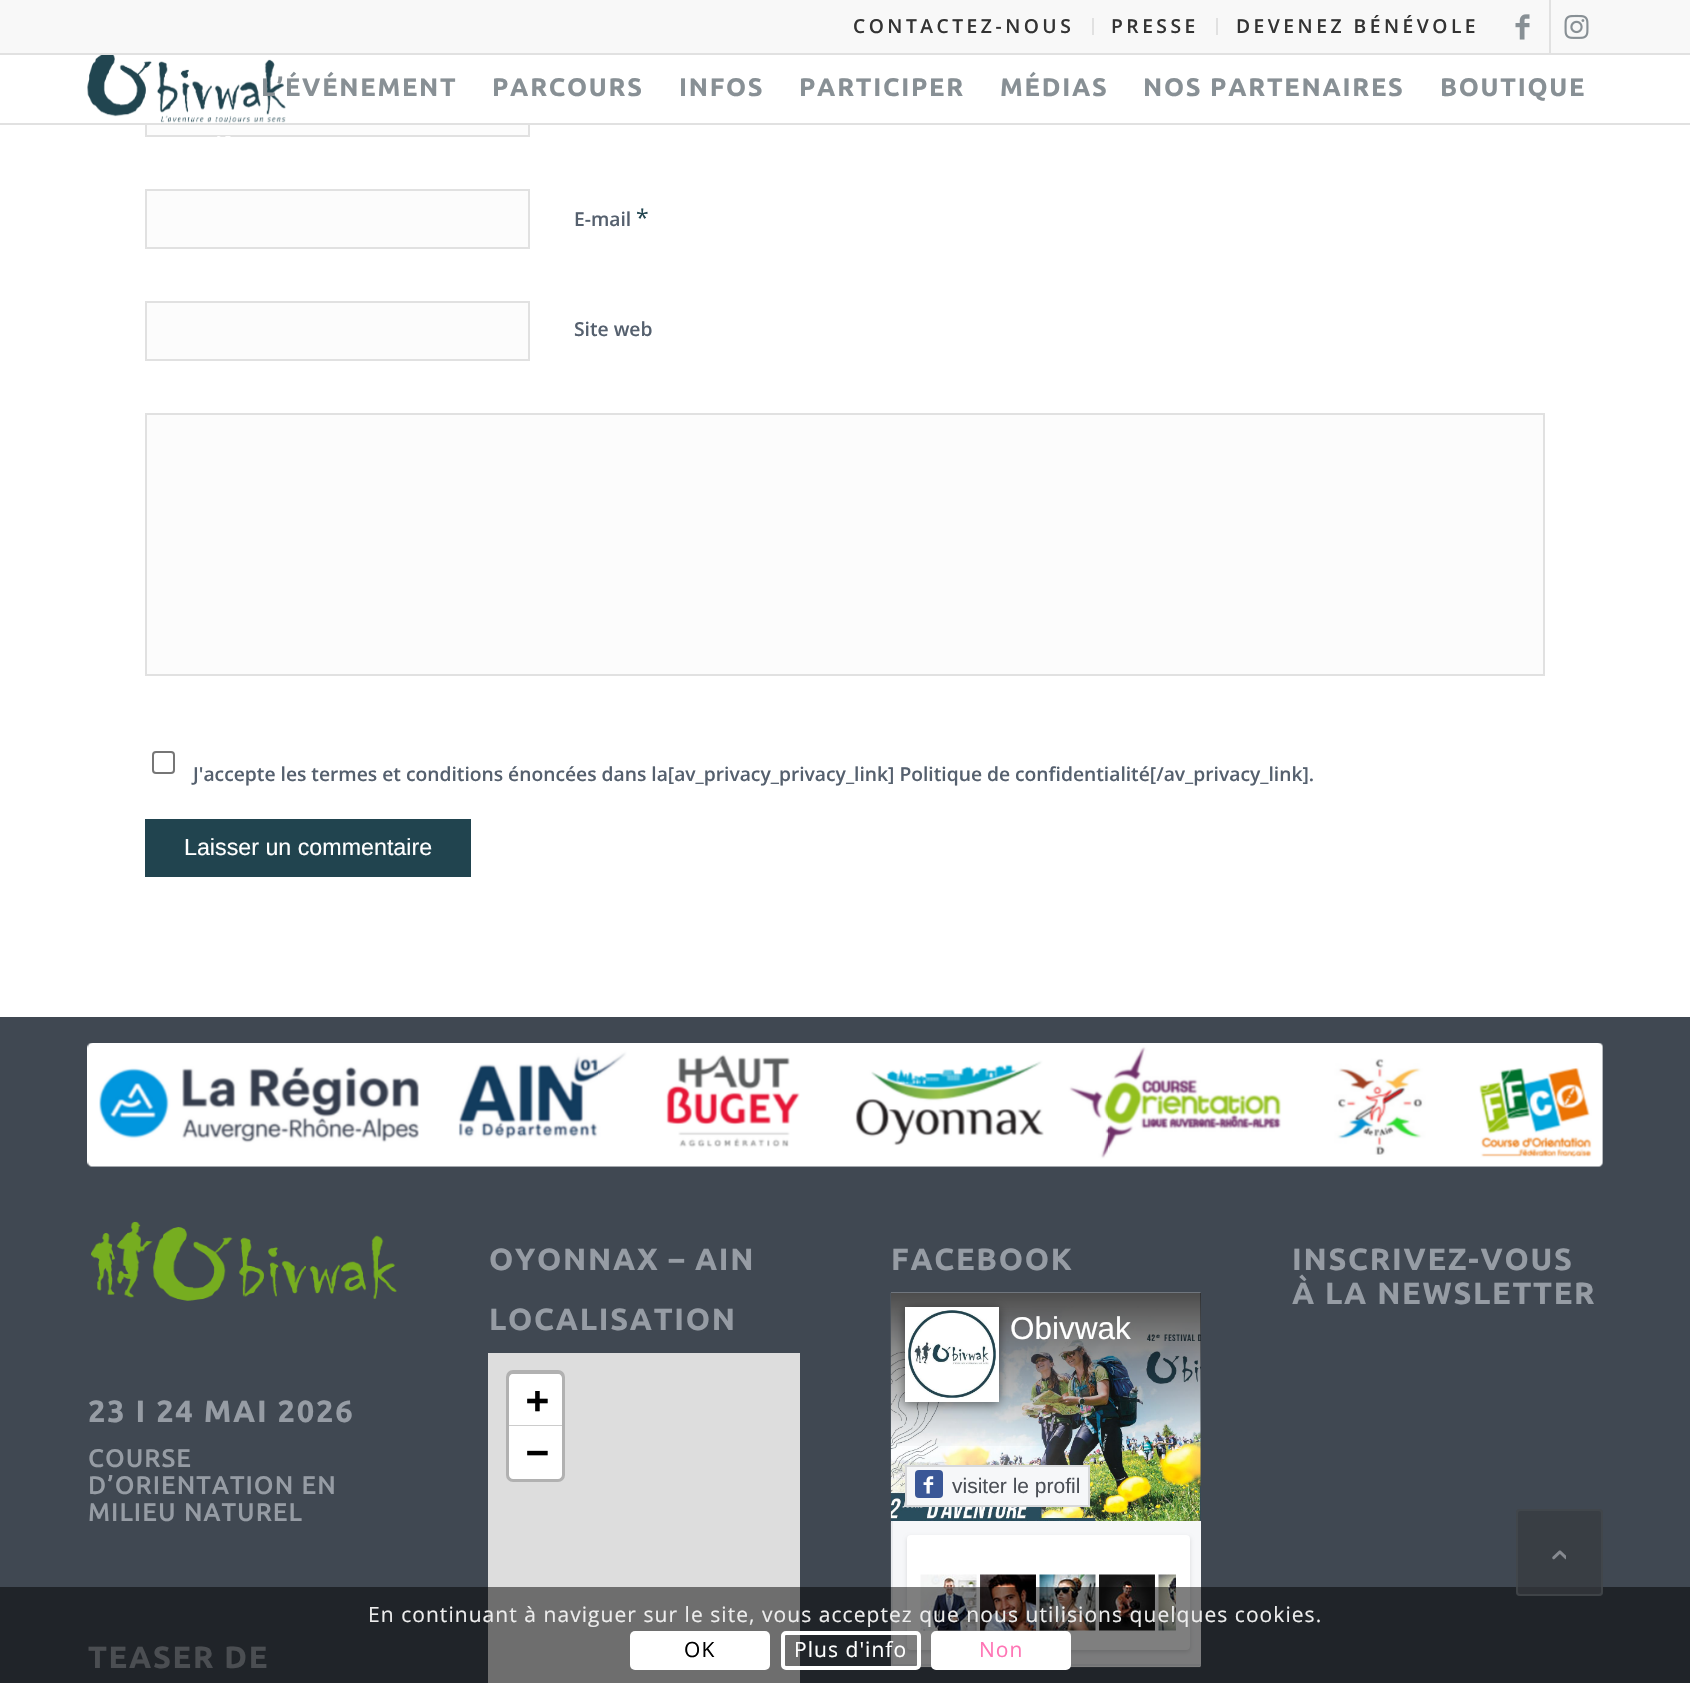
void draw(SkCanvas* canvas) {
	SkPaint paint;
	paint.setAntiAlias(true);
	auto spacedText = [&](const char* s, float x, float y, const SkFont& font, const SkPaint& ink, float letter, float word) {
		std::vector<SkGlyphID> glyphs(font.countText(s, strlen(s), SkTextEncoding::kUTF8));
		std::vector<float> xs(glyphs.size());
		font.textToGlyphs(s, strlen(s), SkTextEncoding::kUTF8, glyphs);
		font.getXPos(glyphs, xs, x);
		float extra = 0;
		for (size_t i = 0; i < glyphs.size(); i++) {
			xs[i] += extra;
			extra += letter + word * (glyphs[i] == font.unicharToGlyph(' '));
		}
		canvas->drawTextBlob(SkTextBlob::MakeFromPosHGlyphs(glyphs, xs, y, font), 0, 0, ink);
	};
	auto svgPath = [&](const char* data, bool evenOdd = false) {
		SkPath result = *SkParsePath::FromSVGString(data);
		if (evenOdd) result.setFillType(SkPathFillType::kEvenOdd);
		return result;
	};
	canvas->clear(0xffffffff);
	paint.setColor(0xfff8f8f8);
	canvas->drawRect(SkRect::MakeXYWH(0, 0, 1690, 53), paint);
	paint.setColor(0xffe1e1e1);
	canvas->drawRect(SkRect::MakeXYWH(0, 53, 1690, 2), paint);
	canvas->drawRect(SkRect::MakeXYWH(1092, 18, 2, 17), paint);
	SkFont f1(fontMgr->matchFamilyStyle("Open Sans", SkFontStyle(600, SkFontStyle::kNormal_Width, SkFontStyle::kUpright_Slant)), 19.25);
	f1.setSubpixel(true);
	paint.setColor(0xff333333);
	spacedText("CONTACTEZ-NOUS", 853, 33, f1, paint, 3.5, 0);
	paint.setColor(0xffe1e1e1);
	canvas->drawRect(SkRect::MakeXYWH(1216, 18, 2, 17), paint);
	paint.setColor(0xff333333);
	spacedText("PRESSE", 1111, 33, f1, paint, 3.5, 0);
	spacedText("DEVENEZ BÉNÉVOLE", 1236, 33, f1, paint, 3.5, 0);
	paint.setColor(0xffe1e1e1);
	canvas->drawRect(SkRect::MakeXYWH(1549, 0, 2, 53), paint);
	canvas->drawImageRect(SkImages::DeferredFromEncodedData(SkData::MakeFromFileName("img1.png")), SkRect::MakeXYWH(1515, 14, 15, 26), SkSamplingOptions());
	canvas->drawImageRect(SkImages::DeferredFromEncodedData(SkData::MakeFromFileName("img2.png")), SkRect::MakeXYWH(1564, 14, 25, 25), SkSamplingOptions());
	paint.setColor(0xfffcfcfc);
	canvas->drawRect(SkRect::MakeXYWH(147, 125, 381, 10), paint);
	paint.setStroke(true);
	paint.setStrokeWidth(2);
	paint.setColor(0xffe1e1e1);
	canvas->drawRect(SkRect::MakeXYWH(146, 78, 383, 58), paint);
	paint.setStroke(false);
	canvas->drawRect(SkRect::MakeXYWH(0, 123, 1690, 2), paint);
	paint.setColor(0xffffffff);
	canvas->drawRect(SkRect::MakeXYWH(145, 77, 385, 46), paint);
	canvas->drawImageRect(SkImages::DeferredFromEncodedData(SkData::MakeFromFileName("img3.png")), SkRect::MakeXYWH(87, 55, 199, 68), SkSamplingOptions());
	SkFont f2(fontMgr->matchFamilyStyle("Ubuntu", SkFontStyle::Bold()), 25.4);
	f2.setSubpixel(true);
	paint.setColor(0xff889095);
	spacedText("L’ÉVÉNEMENT", 261, 96, f2, paint, 1.75, 0);
	spacedText("PARCOURS", 492, 96, f2, paint, 1.75, 0);
	spacedText("INFOS", 679, 96, f2, paint, 1.75, 0);
	spacedText("PARTICIPER", 799, 96, f2, paint, 1.75, 0);
	spacedText("MÉDIAS", 1000, 96, f2, paint, 1.75, 0);
	spacedText("NOS PARTENAIRES", 1143, 96, f2, paint, 1.75, 0);
	spacedText("BOUTIQUE", 1440, 96, f2, paint, 1.75, 0);
	canvas->drawImageRect(SkImages::DeferredFromEncodedData(SkData::MakeFromFileName("img4.png")), SkRect::MakeXYWH(217, 136, 14, 1), SkSamplingOptions());
	paint.setColor(0xfffcfcfc);
	canvas->drawRect(SkRect::MakeXYWH(146, 190, 383, 58), paint);
	paint.setStroke(true);
	paint.setColor(0xffe1e1e1);
	canvas->drawRect(SkRect::MakeXYWH(146, 190, 383, 58), paint);
	paint.setStroke(false);
	paint.setColor(0xff55606e);
	canvas->drawString("E-mail", 574, 226, f1, paint);
	SkFont f3(fontMgr->matchFamilyStyle("Open Sans", SkFontStyle::Normal()), 23);
	f3.setSubpixel(true);
	paint.setColor(0xff21444f);
	canvas->drawString("*", 636, 226, f3, paint);
	paint.setColor(0xfffcfcfc);
	canvas->drawRect(SkRect::MakeXYWH(146, 302, 383, 58), paint);
	paint.setStroke(true);
	paint.setColor(0xffe1e1e1);
	canvas->drawRect(SkRect::MakeXYWH(146, 302, 383, 58), paint);
	paint.setStroke(false);
	paint.setColor(0xff55606e);
	canvas->drawString("Site web", 574, 336, f1, paint);
	paint.setColor(0xfffcfcfc);
	canvas->drawRect(SkRect::MakeXYWH(146, 414, 1398, 261), paint);
	paint.setStroke(true);
	paint.setColor(0xffe1e1e1);
	canvas->drawRect(SkRect::MakeXYWH(146, 414, 1398, 261), paint);
	paint.setColor(0xff767676);
	canvas->drawRoundRect(SkRect::MakeXYWH(153, 752, 21, 21), 3, 3, paint);
	paint.setStroke(false);
	paint.setColor(0xff55606e);
	canvas->drawString("J'accepte les termes et conditions énoncées dans la[av_privacy_privacy_link] Politique de confidentialité[/av_privacy_link].", 193, 781, f1, paint);
	paint.setColor(0xff21444f);
	canvas->drawRect(SkRect::MakeXYWH(145, 819, 326, 58), paint);
	SkFont f4(fontMgr->matchFamilyStyle("Liberation Sans", SkFontStyle::Normal()), 23.25);
	f4.setSubpixel(true);
	paint.setColor(0xffffffff);
	canvas->drawString("Laisser un commentaire", 184, 855, f4, paint);
	paint.setColor(0xff404852);
	canvas->drawRect(SkRect::MakeXYWH(0, 1017, 1690, 666), paint);
	canvas->drawImageRect(SkImages::DeferredFromEncodedData(SkData::MakeFromFileName("img5.png")), SkRect::MakeXYWH(87, 1043, 1516, 124), SkSamplingOptions());
	SkFont f5(fontMgr->matchFamilyStyle("Ubuntu", SkFontStyle::Bold()), 30.75);
	f5.setSubpixel(true);
	paint.setColor(0xff969ca4);
	spacedText("OYONNAX – AIN", 489, 1270, f5, paint, 1.75, 0);
	spacedText("LOCALISATION", 489, 1330, f5, paint, 1.75, 0);
	paint.setColor(0xffdddddd);
	canvas->drawRect(SkRect::MakeXYWH(488, 1353, 312, 330), paint);
	paint.setStroke(true);
	paint.setStrokeWidth(4);
	paint.setColor(0xffb1b1b1);
	canvas->drawRoundRect(SkRect::MakeXYWH(508, 1372, 55, 108), 5, 5, paint);
	paint.setStroke(false);
	paint.setColor(0xffffffff);
	canvas->drawPath(svgPath("M513 1374H558C560 1374 562 1376 562 1378V1426H509V1378C509 1376 511 1374 513 1374Z"), paint);
	paint.setColor(0xffcccccc);
	canvas->drawRect(SkRect::MakeXYWH(509, 1425, 53, 1), paint);
	SkFont f6(fontMgr->matchFamilyStyle("DejaVu Sans Mono", SkFontStyle::Bold()), 38);
	f6.setSubpixel(true);
	paint.setColor(0xff000000);
	canvas->drawString("+", 526, 1413, f6, paint);
	paint.setColor(0xffffffff);
	canvas->drawPath(svgPath("M509 1426H562V1475C562 1477 560 1479 558 1479H513C511 1479 509 1477 509 1475Z"), paint);
	paint.setColor(0xff000000);
	canvas->drawString("−", 526, 1465, f6, paint);
	paint.setColor(0xff969ca4);
	spacedText("FACEBOOK", 891, 1270, f5, paint, 1.75, 0);
	canvas->drawImageRect(SkImages::DeferredFromEncodedData(SkData::MakeFromFileName("img6.png")), SkRect::MakeXYWH(890, 1292, 311, 376), SkSamplingOptions());
	{
		const SkColor colors[] = {0xb3000000, 0x00000000};
		const float stops[] = {0, 1};
		const SkPoint ends[] = {{1048, 1293}, {1048, 1451}};
		paint.setShader(SkGradientShader::MakeLinear(ends, colors, stops, 2, SkTileMode::kClamp));
		paint.setAlpha(255);
	}
	canvas->drawRect(SkRect::MakeXYWH(891, 1293, 310, 153), paint);
	paint.setShader(nullptr);
	paint.setColor(0x80000000);
	paint.setMaskFilter(SkMaskFilter::MakeBlur(kNormal_SkBlurStyle, 5));
	canvas->drawRect(SkRect::MakeXYWH(905, 1309, 94, 95), paint);
	paint.setMaskFilter(nullptr);
	paint.setColor(0xffffffff);
	canvas->drawRect(SkRect::MakeXYWH(905, 1307, 94, 95), paint);
	canvas->drawImageRect(SkImages::DeferredFromEncodedData(SkData::MakeFromFileName("img7.png")), SkRect::MakeXYWH(908, 1310, 88, 88), SkSamplingOptions());
	SkFont f7(fontMgr->matchFamilyStyle("Liberation Sans", SkFontStyle::Normal()), 31.5);
	f7.setSubpixel(true);
	canvas->drawString("Obivwak", 1010, 1339, f7, paint);
	paint.setColor(0xfff6f7f9);
	canvas->drawRect(SkRect::MakeXYWH(906, 1466, 183, 40), paint);
	paint.setStroke(true);
	paint.setStrokeWidth(2);
	paint.setColor(0xffd8d9db);
	canvas->drawRect(SkRect::MakeXYWH(906, 1466, 183, 40), paint);
	paint.setStroke(false);
	paint.setColor(0xff3a5797);
	canvas->drawRoundRect(SkRect::MakeXYWH(915, 1470, 28, 28), 4, 4, paint);
	canvas->drawImageRect(SkImages::DeferredFromEncodedData(SkData::MakeFromFileName("img8.png")), SkRect::MakeXYWH(923, 1476, 11, 18), SkSamplingOptions());
	SkFont f8(fontMgr->matchFamilyStyle("Liberation Sans", SkFontStyle::Normal()), 21);
	f8.setSubpixel(true);
	paint.setColor(0xff4b4f56);
	canvas->drawString("visiter le profil", 952, 1493, f8, paint);
	paint.setColor(0xfff6f7f9);
	canvas->drawRect(SkRect::MakeXYWH(893, 1521, 308, 143), paint);
	paint.setColor(0xffe9ebee);
	canvas->drawRect(SkRect::MakeXYWH(891, 1664, 310, 2), paint);
	canvas->drawRect(SkRect::MakeXYWH(891, 1521, 2, 145), paint);
	paint.setColor(0x1f000000);
	paint.setMaskFilter(SkMaskFilter::MakeBlur(kNormal_SkBlurStyle, 2));
	canvas->drawRoundRect(SkRect::MakeXYWH(907, 1537, 283, 115), 4, 4, paint);
	paint.setMaskFilter(nullptr);
	paint.setColor(0xffffffff);
	canvas->drawRoundRect(SkRect::MakeXYWH(907, 1535, 283, 115), 4, 4, paint);
	canvas->drawImageRect(SkImages::DeferredFromEncodedData(SkData::MakeFromFileName("img9.png")), SkRect::MakeXYWH(920, 1574, 256, 57), SkSamplingOptions());
	paint.setColor(0xff969ca4);
	spacedText("INSCRIVEZ-VOUS", 1292, 1270, f5, paint, 1.75, 0);
	spacedText("À LA NEWSLETTER", 1292, 1304, f5, paint, 1.75, 0);
	canvas->drawImageRect(SkImages::DeferredFromEncodedData(SkData::MakeFromFileName("img10.png")), SkRect::MakeXYWH(91, 1221, 306, 80), SkSamplingOptions());
	spacedText("23 I 24 MAI 2026", 88, 1422, f5, paint, 1.75, 0);
	SkFont f9(fontMgr->matchFamilyStyle("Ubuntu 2", SkFontStyle::Bold()), 24.5);
	f9.setSubpixel(true);
	spacedText("COURSE", 88, 1467, f9, paint, 1.75, 0);
	spacedText("D’ORIENTATION EN", 88, 1494, f9, paint, 1.75, 0);
	spacedText("MILIEU NATUREL", 88, 1521, f9, paint, 1.75, 0);
	spacedText("TEASER DE", 88, 1668, f5, paint, 1.75, 0);
	paint.setColor(0x80000000);
	canvas->drawRect(SkRect::MakeXYWH(0, 1587, 1690, 96), paint);
	paint.setColor(0xb336393d);
	canvas->drawRoundRect(SkRect::MakeXYWH(1516, 1509, 87, 87), 4, 4, paint);
	paint.setStroke(true);
	paint.setColor(0xb345494d);
	canvas->drawRoundRect(SkRect::MakeXYWH(1517, 1510, 85, 85), 3, 3, paint);
	canvas->drawImageRect(SkImages::DeferredFromEncodedData(SkData::MakeFromFileName("img11.png")), SkRect::MakeXYWH(1552, 1550, 14, 10), SkSamplingOptions());
	SkFont f10(fontMgr->matchFamilyStyle("Open Sans", SkFontStyle::Normal()), 21);
	f10.setSubpixel(true);
	paint.setStroke(false);
	paint.setColor(0xffededed);
	spacedText("En continuant à naviguer sur le site, vous acceptez que nous utilisions quelques cookies.", 368, 1622, f10, paint, 1.05, 0);
	paint.setColor(0xffffffff);
	canvas->drawRoundRect(SkRect::MakeXYWH(630, 1631, 140, 39), 5, 5, paint);
	paint.setColor(0xff000000);
	spacedText("OK", 684, 1657, f10, paint, 1.05, 0);
	paint.setStroke(true);
	paint.setStrokeWidth(4);
	paint.setColor(0xffffffff);
	canvas->drawRoundRect(SkRect::MakeXYWH(783, 1633, 136, 35), 3, 3, paint);
	paint.setStroke(false);
	spacedText("Plus d'info", 794, 1657, f10, paint, 1.05, 0);
	canvas->drawRoundRect(SkRect::MakeXYWH(933, 1633, 136, 35), 3, 3, paint);
	paint.setStroke(true);
	canvas->drawRoundRect(SkRect::MakeXYWH(933, 1633, 136, 35), 3, 3, paint);
	paint.setStroke(false);
	paint.setColor(0xffff75b5);
	spacedText("Non", 979, 1657, f10, paint, 1.05, 0);
}
